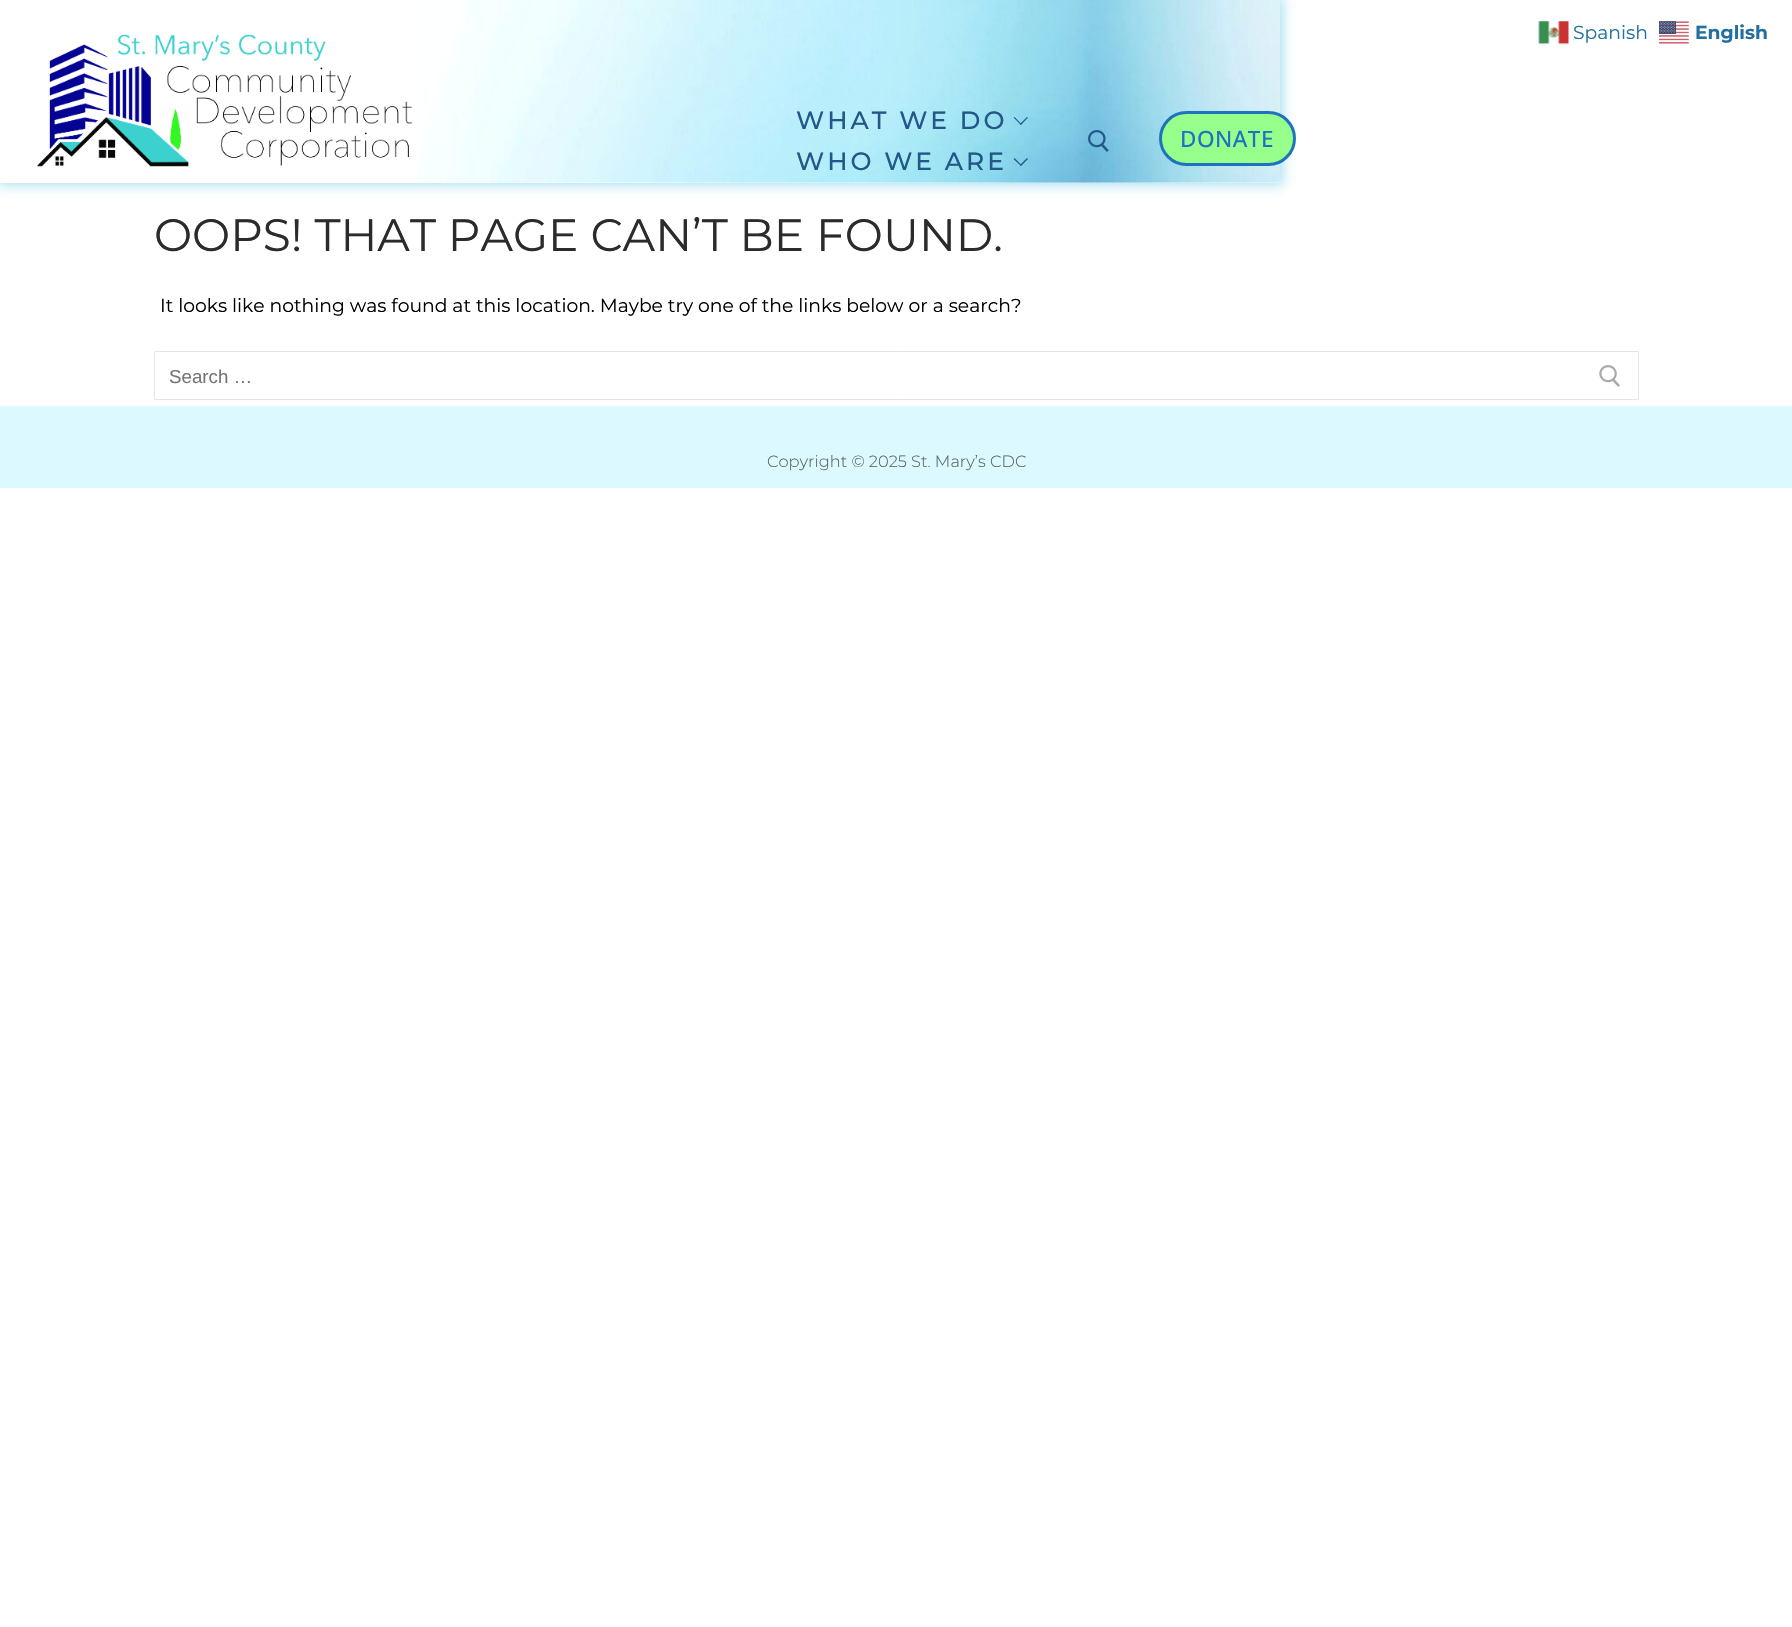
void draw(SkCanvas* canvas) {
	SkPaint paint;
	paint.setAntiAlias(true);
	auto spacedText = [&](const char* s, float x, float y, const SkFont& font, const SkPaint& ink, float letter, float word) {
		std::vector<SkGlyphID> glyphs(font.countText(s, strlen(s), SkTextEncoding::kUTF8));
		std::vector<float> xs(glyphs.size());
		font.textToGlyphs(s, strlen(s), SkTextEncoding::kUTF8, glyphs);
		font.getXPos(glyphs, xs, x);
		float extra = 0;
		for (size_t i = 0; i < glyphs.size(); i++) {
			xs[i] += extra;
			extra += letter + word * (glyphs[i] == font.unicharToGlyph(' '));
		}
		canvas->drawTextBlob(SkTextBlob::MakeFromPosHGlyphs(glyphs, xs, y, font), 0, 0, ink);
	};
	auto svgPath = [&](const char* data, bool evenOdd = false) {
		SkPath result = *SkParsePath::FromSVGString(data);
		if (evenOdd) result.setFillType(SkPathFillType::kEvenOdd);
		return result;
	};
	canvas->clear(0xffffffff);
	canvas->drawImageRect(SkImages::DeferredFromEncodedData(SkData::MakeFromFileName("img1.png")), SkRect::MakeXYWH(1538, 21, 31, 24), SkSamplingOptions());
	SkFont f1(fontMgr->matchFamilyStyle("Montserrat", SkFontStyle(100, SkFontStyle::kNormal_Width, SkFontStyle::kUpright_Slant)), 18.75);
	f1.setSubpixel(true);
	paint.setColor(0xff246f9e);
	canvas->drawString("Spanish", 1573, 39, f1, paint);
	canvas->drawImageRect(SkImages::DeferredFromEncodedData(SkData::MakeFromFileName("img2.png")), SkRect::MakeXYWH(1659, 21, 30, 23), SkSamplingOptions());
	SkFont f2(fontMgr->matchFamilyStyle("Montserrat", SkFontStyle::Bold()), 18.75);
	f2.setSubpixel(true);
	canvas->drawString("English", 1695, 39, f2, paint);
	paint.setColor(0xcf93d8ed);
	paint.setMaskFilter(SkMaskFilter::MakeBlur(kNormal_SkBlurStyle, 6));
	canvas->drawRect(SkRect::MakeXYWH(-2, -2, 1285, 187), paint);
	paint.setMaskFilter(nullptr);
	paint.setColor(0xffffffff);
	canvas->drawRect(SkRect::MakeXYWH(0, 0, 1280, 183), paint);
	canvas->drawImageRect(SkImages::DeferredFromEncodedData(SkData::MakeFromFileName("img3.png")), SkRect::MakeXYWH(418, 0, 862, 183), SkSamplingOptions());
	canvas->drawImageRect(SkImages::DeferredFromEncodedData(SkData::MakeFromFileName("img4.png")), SkRect::MakeXYWH(37, 34, 375, 133), SkSamplingOptions());
	SkFont f3(fontMgr->matchFamilyStyle("Montserrat", SkFontStyle(500, SkFontStyle::kNormal_Width, SkFontStyle::kUpright_Slant)), 25);
	f3.setSubpixel(true);
	paint.setColor(0xff235787);
	spacedText("WHAT WE DO", 796, 129, f3, paint, 3, 0);
	canvas->drawPath(svgPath("M1021 125L1013.5 117.5L1014.5 117L1021.5 124Z"), paint);
	canvas->drawPath(svgPath("M1021 125L1020 124L1027 117L1028 117.5Z"), paint);
	spacedText("WHO WE ARE", 796, 170, f3, paint, 3, 0);
	canvas->drawPath(svgPath("M1021 166L1013.5 159L1014.5 158L1021.5 165Z"), paint);
	canvas->drawPath(svgPath("M1021 166L1020 165L1027 158L1028 159Z"), paint);
	canvas->drawImageRect(SkImages::DeferredFromEncodedData(SkData::MakeFromFileName("img5.png")), SkRect::MakeXYWH(1088, 130, 21, 22), SkSamplingOptions());
	paint.setColor(0xff97ff8c);
	canvas->drawRoundRect(SkRect::MakeXYWH(1160.5, 112.5, 134, 52), 26, 26, paint);
	paint.setStroke(true);
	paint.setStrokeWidth(3);
	paint.setColor(0xff1e73be);
	canvas->drawRoundRect(SkRect::MakeXYWH(1160.5, 112.5, 134, 52), 26, 26, paint);
	SkFont f4(fontMgr->matchFamilyStyle("Open Sans", SkFontStyle(500, SkFontStyle::kNormal_Width, SkFontStyle::kUpright_Slant)), 22.5);
	f4.setSubpixel(true);
	paint.setStroke(false);
	spacedText("DONATE", 1180, 147, f4, paint, 0.5, 0);
	SkFont f5(fontMgr->matchFamilyStyle("Montserrat", SkFontStyle(100, SkFontStyle::kNormal_Width, SkFontStyle::kUpright_Slant)), 45.4);
	f5.setSubpixel(true);
	paint.setColor(0xff2b2b2b);
	canvas->drawString("OOPS! THAT PAGE CAN’T BE FOUND.", 154, 251, f5, paint);
	paint.setColor(0xff000000);
	canvas->drawString("It looks like nothing was found at this location. Maybe try one of the links below or a search?", 160, 312, f1, paint);
	paint.setStroke(true);
	paint.setStrokeWidth(1);
	paint.setColor(0xffe5e5e5);
	canvas->drawRoundRect(SkRect::MakeXYWH(154.5, 351.5, 1484, 48), 0.5, 0.5, paint);
	SkFont f6(fontMgr->matchFamilyStyle("Liberation Sans", SkFontStyle::Normal()), 18.75);
	f6.setSubpixel(true);
	paint.setStroke(false);
	paint.setColor(0xff757575);
	canvas->drawString("Search …", 169, 383, f6, paint);
	canvas->drawImageRect(SkImages::DeferredFromEncodedData(SkData::MakeFromFileName("img6.png")), SkRect::MakeXYWH(1599, 365, 21, 22), SkSamplingOptions());
	paint.setColor(0xffdbf9ff);
	canvas->drawRect(SkRect::MakeXYWH(0, 406, 1792, 82), paint);
	SkFont f7(fontMgr->matchFamilyStyle("Montserrat", SkFontStyle(300, SkFontStyle::kNormal_Width, SkFontStyle::kUpright_Slant)), 16.25);
	f7.setSubpixel(true);
	paint.setColor(0xff586466);
	canvas->drawString("Copyright © 2025 St. Mary’s CDC", 767, 467, f7, paint);
}
